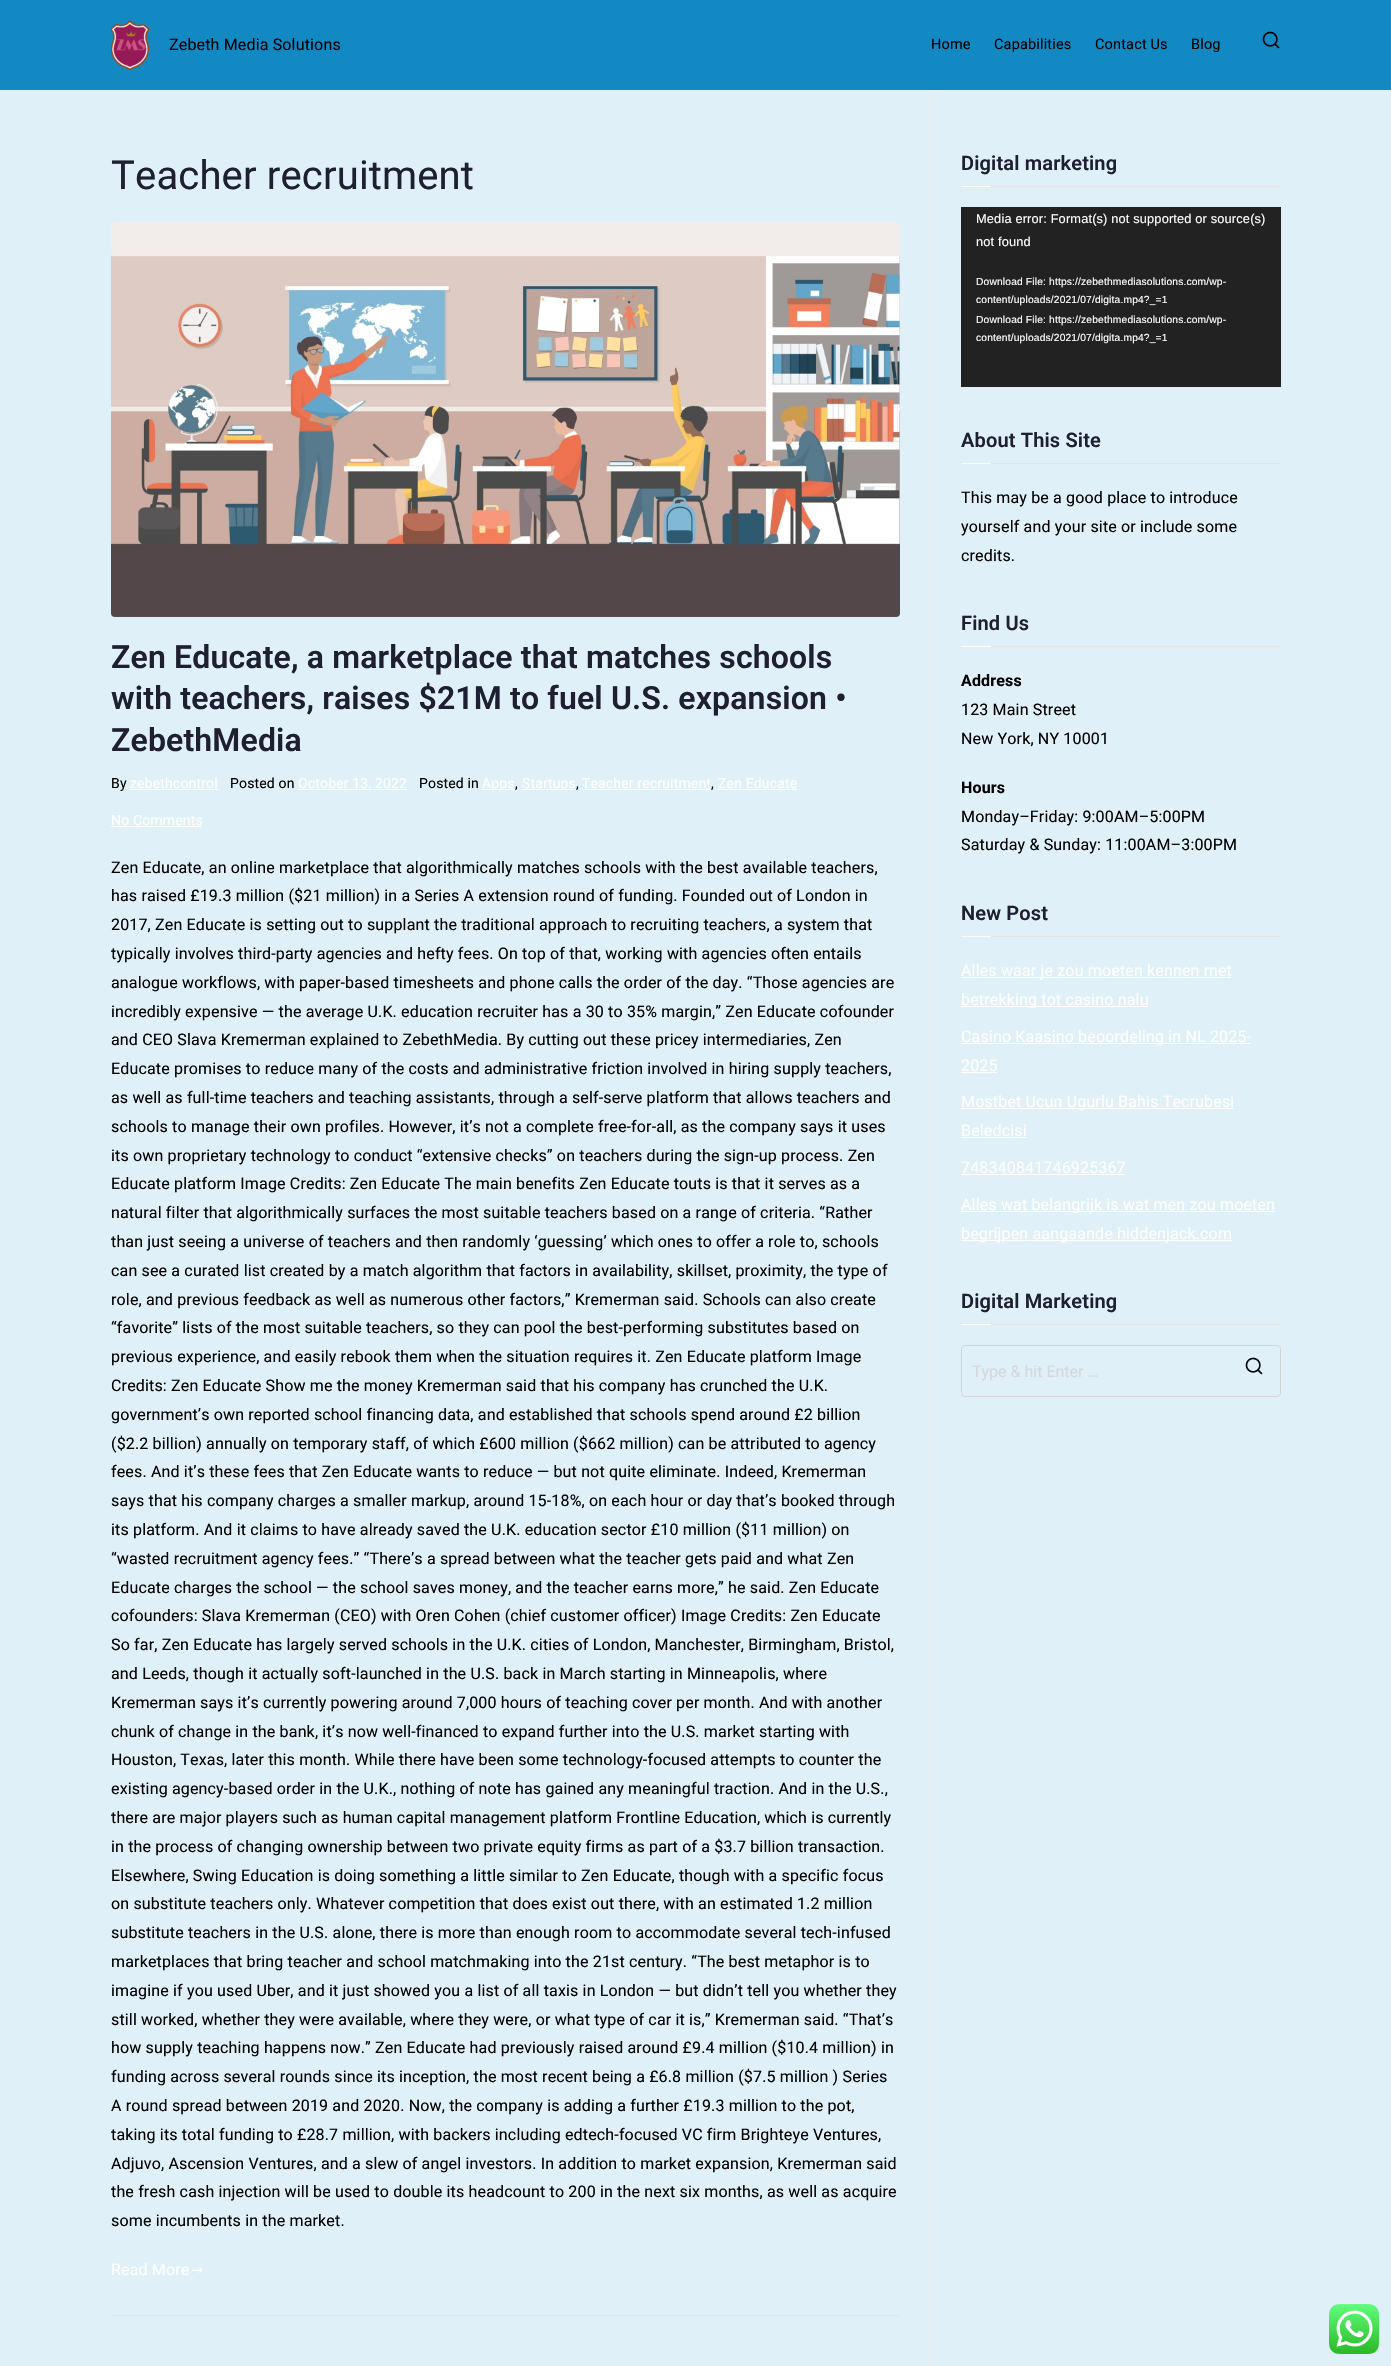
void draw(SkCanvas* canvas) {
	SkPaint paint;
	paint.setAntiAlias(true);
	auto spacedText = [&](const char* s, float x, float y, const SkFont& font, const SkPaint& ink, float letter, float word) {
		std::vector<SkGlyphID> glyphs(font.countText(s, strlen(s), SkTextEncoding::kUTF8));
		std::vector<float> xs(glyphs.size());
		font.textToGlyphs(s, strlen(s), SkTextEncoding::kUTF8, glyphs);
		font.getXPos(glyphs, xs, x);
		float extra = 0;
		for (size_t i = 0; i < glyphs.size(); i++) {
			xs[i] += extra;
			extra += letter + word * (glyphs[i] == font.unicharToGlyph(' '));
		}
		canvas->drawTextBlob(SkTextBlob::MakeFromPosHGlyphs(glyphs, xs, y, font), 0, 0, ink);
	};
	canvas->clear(0xff1389c4);
	canvas->drawImageRect(SkImages::DeferredFromEncodedData(SkData::MakeFromFileName("img1.png")), SkRect::MakeXYWH(111, 20, 38, 50), SkSamplingOptions());
	SkFont f1(fontMgr->matchFamilyStyle("Roboto", SkFontStyle::Normal()), 16);
	f1.setSubpixel(true);
	paint.setColor(0xff000000);
	spacedText("Zebeth Media Solutions", 169, 50, f1, paint, 0.16, 0);
	SkFont f2(fontMgr->matchFamilyStyle("Roboto", SkFontStyle::Normal()), 14.5);
	f2.setSubpixel(true);
	spacedText("Home", 931, 49, f2, paint, 0.16, 0);
	spacedText("Capabilities", 994, 49, f2, paint, 0.16, 0);
	spacedText("Contact Us", 1095, 49, f2, paint, 0.16, 0);
	spacedText("Blog", 1191, 49, f2, paint, 0.16, 0);
	canvas->drawImageRect(SkImages::DeferredFromEncodedData(SkData::MakeFromFileName("img2.png")), SkRect::MakeXYWH(1262, 31, 18, 18), SkSamplingOptions());
	paint.setColor(0xffdff0f8);
	canvas->drawRect(SkRect::MakeXYWH(0, 90, 1391, 2276), paint);
	SkFont f3(fontMgr->matchFamilyStyle("Roboto", SkFontStyle::Normal()), 40);
	f3.setSubpixel(true);
	paint.setColor(0xff1f1f32);
	spacedText("Teacher recruitment", 111, 189, f3, paint, 0.16, 0);
	paint.setColor(0xffe4e4e7);
	canvas->drawRect(SkRect::MakeXYWH(111, 2315, 789, 1), paint);
	canvas->drawImageRect(SkImages::DeferredFromEncodedData(SkData::MakeFromFileName("img3.png")), SkRect::MakeXYWH(111, 222, 789, 395), SkSamplingOptions());
	SkFont f4(fontMgr->matchFamilyStyle("Roboto", SkFontStyle(600, SkFontStyle::kNormal_Width, SkFontStyle::kUpright_Slant)), 32);
	f4.setSubpixel(true);
	paint.setColor(0xff1f1f32);
	spacedText("Zen Educate, a marketplace that matches schools", 111, 668, f4, paint, 0.16, 0);
	spacedText("with teachers, raises $21M to fuel U.S. expansion •", 111, 709, f4, paint, 0.16, 0);
	spacedText("ZebethMedia", 111, 751, f4, paint, 0.16, 0);
	SkFont f5(fontMgr->matchFamilyStyle("Roboto", SkFontStyle::Normal()), 14);
	f5.setSubpixel(true);
	paint.setColor(0xff000000);
	spacedText("By", 111, 788, f5, paint, 0.16, 0);
	paint.setColor(0xffffffff);
	spacedText("zebethcontrol", 130, 788, f5, paint, 0.16, 0);
	canvas->drawRect(SkRect::MakeXYWH(130, 789, 88, 1), paint);
	paint.setColor(0xff000000);
	spacedText("Posted on", 230, 788, f5, paint, 0.16, 0);
	paint.setColor(0xffffffff);
	canvas->drawRect(SkRect::MakeXYWH(298, 789, 109, 1), paint);
	spacedText("October 13, 2022", 298, 788, f5, paint, 0.16, 0);
	paint.setColor(0xff000000);
	spacedText("Posted in", 419, 788, f5, paint, 0.16, 0);
	paint.setColor(0xffffffff);
	canvas->drawRect(SkRect::MakeXYWH(482, 789, 33, 1), paint);
	spacedText("Apps", 482, 788, f5, paint, 0.16, 0);
	paint.setColor(0xff000000);
	spacedText(",", 515, 788, f5, paint, 0.16, 0);
	paint.setColor(0xffffffff);
	canvas->drawRect(SkRect::MakeXYWH(522, 789, 54, 1), paint);
	spacedText("Startups", 522, 788, f5, paint, 0.16, 0);
	paint.setColor(0xff000000);
	spacedText(",", 576, 788, f5, paint, 0.16, 0);
	paint.setColor(0xffffffff);
	spacedText("Teacher recruitment", 582, 788, f5, paint, 0.16, 0);
	canvas->drawRect(SkRect::MakeXYWH(582, 789, 129, 1), paint);
	paint.setColor(0xff000000);
	spacedText(",", 711, 788, f5, paint, 0.16, 0);
	paint.setColor(0xffffffff);
	spacedText("Zen Educate", 718, 788, f5, paint, 0.16, 0);
	canvas->drawRect(SkRect::MakeXYWH(718, 789, 79, 1), paint);
	spacedText("No Comments", 111, 825, f5, paint, 0.16, 0);
	canvas->drawRect(SkRect::MakeXYWH(111, 826, 91, 1), paint);
	paint.setColor(0xff000000);
	spacedText("Zen Educate, an online marketplace that algorithmically matches schools with the best available teachers,", 111, 873, f1, paint, 0.16, 0);
	spacedText("has raised £19.3 million ($21 million) in a Series A extension round of funding. Founded out of London in", 111, 901, f1, paint, 0.16, 0);
	spacedText("2017, Zen Educate is setting out to supplant the traditional approach to recruiting teachers, a system that", 111, 930, f1, paint, 0.16, 0);
	spacedText("typically involves third-party agencies and hefty fees. On top of that, working with agencies often entails", 111, 959, f1, paint, 0.16, 0);
	spacedText("analogue workflows, with paper-based timesheets and phone calls the order of the day. “Those agencies are", 111, 988, f1, paint, 0.16, 0);
	spacedText("incredibly expensive — the average U.K. education recruiter has a 30 to 35% margin,” Zen Educate cofounder", 111, 1017, f1, paint, 0.16, 0);
	spacedText("and CEO Slava Kremerman explained to ZebethMedia. By cutting out these pricey intermediaries, Zen", 111, 1045, f1, paint, 0.16, 0);
	spacedText("Educate promises to reduce many of the costs and administrative friction involved in hiring supply teachers,", 111, 1074, f1, paint, 0.16, 0);
	spacedText("as well as full-time teachers and teaching assistants, through a self-serve platform that allows teachers and", 111, 1103, f1, paint, 0.16, 0);
	spacedText("schools to manage their own profiles. However, it’s not a complete free-for-all, as the company says it uses", 111, 1132, f1, paint, 0.16, 0);
	spacedText("its own proprietary technology to conduct “extensive checks” on teachers during the sign-up process. Zen", 111, 1161, f1, paint, 0.16, 0);
	spacedText("Educate platform Image Credits: Zen Educate The main benefits Zen Educate touts is that it serves as a", 111, 1189, f1, paint, 0.16, 0);
	spacedText("natural filter that algorithmically surfaces the most suitable teachers based on a range of criteria. “Rather", 111, 1218, f1, paint, 0.16, 0);
	spacedText("than just seeing a universe of teachers and then randomly ‘guessing’ which ones to offer a role to, schools", 111, 1247, f1, paint, 0.16, 0);
	spacedText("can see a curated list created by a match algorithm that factors in availability, skillset, proximity, the type of", 111, 1276, f1, paint, 0.16, 0);
	spacedText("role, and previous feedback as well as numerous other factors,” Kremerman said. Schools can also create", 111, 1305, f1, paint, 0.16, 0);
	spacedText("“favorite” lists of the most suitable teachers, so they can pool the best-performing substitutes based on", 111, 1333, f1, paint, 0.16, 0);
	spacedText("previous experience, and easily rebook them when the situation requires it. Zen Educate platform Image", 111, 1362, f1, paint, 0.16, 0);
	spacedText("Credits: Zen Educate Show me the money Kremerman said that his company has crunched the U.K.", 111, 1391, f1, paint, 0.16, 0);
	spacedText("government’s own reported school financing data, and established that schools spend around £2 billion", 111, 1420, f1, paint, 0.16, 0);
	spacedText("($2.2 billion) annually on temporary staff, of which £600 million ($662 million) can be attributed to agency", 111, 1449, f1, paint, 0.16, 0);
	spacedText("fees. And it’s these fees that Zen Educate wants to reduce — but not quite eliminate. Indeed, Kremerman", 111, 1477, f1, paint, 0.16, 0);
	spacedText("says that his company charges a smaller markup, around 15-18%, on each hour or day that’s booked through", 111, 1506, f1, paint, 0.16, 0);
	spacedText("its platform. And it claims to have already saved the U.K. education sector £10 million ($11 million) on", 111, 1535, f1, paint, 0.16, 0);
	spacedText("“wasted recruitment agency fees.” “There’s a spread between what the teacher gets paid and what Zen", 111, 1564, f1, paint, 0.16, 0);
	spacedText("Educate charges the school — the school saves money, and the teacher earns more,” he said. Zen Educate", 111, 1593, f1, paint, 0.16, 0);
	spacedText("cofounders: Slava Kremerman (CEO) with Oren Cohen (chief customer officer) Image Credits: Zen Educate", 111, 1621, f1, paint, 0.16, 0);
	spacedText("So far, Zen Educate has largely served schools in the U.K. cities of London, Manchester, Birmingham, Bristol,", 111, 1650, f1, paint, 0.16, 0);
	spacedText("and Leeds, though it actually soft-launched in the U.S. back in March starting in Minneapolis, where", 111, 1679, f1, paint, 0.16, 0);
	spacedText("Kremerman says it’s currently powering around 7,000 hours of teaching cover per month. And with another", 111, 1708, f1, paint, 0.16, 0);
	spacedText("chunk of change in the bank, it’s now well-financed to expand further into the U.S. market starting with", 111, 1737, f1, paint, 0.16, 0);
	spacedText("Houston, Texas, later this month. While there have been some technology-focused attempts to counter the", 111, 1765, f1, paint, 0.16, 0);
	spacedText("existing agency-based order in the U.K., nothing of note has gained any meaningful traction. And in the U.S.,", 111, 1794, f1, paint, 0.16, 0);
	spacedText("there are major players such as human capital management platform Frontline Education, which is currently", 111, 1823, f1, paint, 0.16, 0);
	spacedText("in the process of changing ownership between two private equity firms as part of a $3.7 billion transaction.", 111, 1852, f1, paint, 0.16, 0);
	spacedText("Elsewhere, Swing Education is doing something a little similar to Zen Educate, though with a specific focus", 111, 1881, f1, paint, 0.16, 0);
	spacedText("on substitute teachers only. Whatever competition that does exist out there, with an estimated 1.2 million", 111, 1909, f1, paint, 0.16, 0);
	spacedText("substitute teachers in the U.S. alone, there is more than enough room to accommodate several tech-infused", 111, 1938, f1, paint, 0.16, 0);
	spacedText("marketplaces that bring teacher and school matchmaking into the 21st century. “The best metaphor is to", 111, 1967, f1, paint, 0.16, 0);
	spacedText("imagine if you used Uber, and it just showed you a list of all taxis in London — but didn’t tell you whether they", 111, 1996, f1, paint, 0.16, 0);
	spacedText("still worked, whether they were available, where they were, or what type of car it is,” Kremerman said. “That’s", 111, 2025, f1, paint, 0.16, 0);
	spacedText("how supply teaching happens now.” Zen Educate had previously raised around £9.4 million ($10.4 million) in", 111, 2053, f1, paint, 0.16, 0);
	spacedText("funding across several rounds since its inception, the most recent being a £6.8 million ($7.5 million ) Series", 111, 2082, f1, paint, 0.16, 0);
	spacedText("A round spread between 2019 and 2020. Now, the company is adding a further £19.3 million to the pot,", 111, 2111, f1, paint, 0.16, 0);
	spacedText("taking its total funding to £28.7 million, with backers including edtech-focused VC firm Brighteye Ventures,", 111, 2140, f1, paint, 0.16, 0);
	spacedText("Adjuvo, Ascension Ventures, and a slew of angel investors. In addition to market expansion, Kremerman said", 111, 2169, f1, paint, 0.16, 0);
	spacedText("the fresh cash injection will be used to double its headcount to 200 in the next six months, as well as acquire", 111, 2197, f1, paint, 0.16, 0);
	spacedText("some incumbents in the market.", 111, 2226, f1, paint, 0.16, 0);
	paint.setColor(0xffffffff);
	spacedText("Read More", 111, 2275, f1, paint, 0.16, 0);
	canvas->drawImageRect(SkImages::DeferredFromEncodedData(SkData::MakeFromFileName("img4.png")), SkRect::MakeXYWH(192, 2267, 11, 6), SkSamplingOptions());
	paint.setColor(0xffe9ecef);
	canvas->drawRect(SkRect::MakeXYWH(930, 90, 1, 2276), paint);
	paint.setColor(0xffe4e4e7);
	canvas->drawRect(SkRect::MakeXYWH(991, 186, 290, 1), paint);
	SkFont f6(fontMgr->matchFamilyStyle("Roboto", SkFontStyle(600, SkFontStyle::kNormal_Width, SkFontStyle::kUpright_Slant)), 20);
	f6.setSubpixel(true);
	paint.setColor(0xff1f1f32);
	spacedText("Digital marketing", 961, 170, f6, paint, 0.16, 0);
	paint.setColor(0xffffffff);
	canvas->drawRect(SkRect::MakeXYWH(961, 186, 30, 1), paint);
	paint.setColor(0xff222222);
	canvas->drawRect(SkRect::MakeXYWH(961, 207, 320, 180), paint);
	SkFont f7(fontMgr->matchFamilyStyle("Liberation Sans", SkFontStyle::Normal()), 12.8);
	f7.setSubpixel(true);
	paint.setColor(0xffffffff);
	spacedText("Media error: Format(s) not supported or source(s)", 976, 223, f7, paint, 0.16, 0);
	spacedText("not found", 976, 246, f7, paint, 0.16, 0);
	SkFont f8(fontMgr->matchFamilyStyle("Liberation Sans", SkFontStyle::Normal()), 10.25);
	f8.setSubpixel(true);
	spacedText("Download File: https://zebethmediasolutions.com/wp-", 976, 285, f8, paint, 0.16, 0);
	spacedText("content/uploads/2021/07/digita.mp4?_=1", 976, 303, f8, paint, 0.16, 0);
	spacedText("Download File: https://zebethmediasolutions.com/wp-", 976, 323, f8, paint, 0.16, 0);
	spacedText("content/uploads/2021/07/digita.mp4?_=1", 976, 341, f8, paint, 0.16, 0);
	paint.setColor(0xffe4e4e7);
	canvas->drawRect(SkRect::MakeXYWH(991, 463, 290, 1), paint);
	paint.setColor(0xff1f1f32);
	spacedText("About This Site", 961, 447, f6, paint, 0.16, 0);
	paint.setColor(0xffffffff);
	canvas->drawRect(SkRect::MakeXYWH(961, 463, 30, 1), paint);
	paint.setColor(0xff000000);
	spacedText("This may be a good place to introduce", 961, 503, f1, paint, 0.16, 0);
	spacedText("yourself and your site or include some", 961, 532, f1, paint, 0.16, 0);
	spacedText("credits.", 961, 561, f1, paint, 0.16, 0);
	paint.setColor(0xffe4e4e7);
	canvas->drawRect(SkRect::MakeXYWH(991, 646, 290, 1), paint);
	paint.setColor(0xff1f1f32);
	spacedText("Find Us", 961, 630, f6, paint, 0.16, 0);
	paint.setColor(0xffffffff);
	canvas->drawRect(SkRect::MakeXYWH(961, 646, 30, 1), paint);
	SkFont f9(fontMgr->matchFamilyStyle("Roboto", SkFontStyle::Bold()), 16);
	f9.setSubpixel(true);
	paint.setColor(0xff000000);
	spacedText("Address", 961, 686, f9, paint, 0.16, 0);
	spacedText("123 Main Street", 961, 715, f1, paint, 0.16, 0);
	spacedText("New York, NY 10001", 961, 744, f1, paint, 0.16, 0);
	spacedText("Hours", 961, 793, f9, paint, 0.16, 0);
	spacedText("Monday–Friday: 9:00AM–5:00PM", 961, 822, f1, paint, 0.16, 0);
	spacedText("Saturday & Sunday: 11:00AM–3:00PM", 961, 850, f1, paint, 0.16, 0);
	paint.setColor(0xffe4e4e7);
	canvas->drawRect(SkRect::MakeXYWH(991, 936, 290, 1), paint);
	paint.setColor(0xff1f1f32);
	spacedText("New Post", 961, 920, f6, paint, 0.16, 0);
	paint.setColor(0xffffffff);
	canvas->drawRect(SkRect::MakeXYWH(961, 936, 30, 1), paint);
	canvas->drawRect(SkRect::MakeXYWH(961, 977, 270, 1), paint);
	spacedText("Alles waar je zou moeten kennen met", 961, 976, f1, paint, 0.16, 0);
	canvas->drawRect(SkRect::MakeXYWH(961, 1006, 187, 1), paint);
	spacedText("betrekking tot casino nalu", 961, 1005, f1, paint, 0.16, 0);
	canvas->drawRect(SkRect::MakeXYWH(961, 1043, 290, 1), paint);
	spacedText("Casino Kaasino beoordeling in NL 2025-", 961, 1042, f1, paint, 0.16, 0);
	spacedText("2025", 961, 1071, f1, paint, 0.16, 0);
	canvas->drawRect(SkRect::MakeXYWH(961, 1072, 36, 1), paint);
	canvas->drawRect(SkRect::MakeXYWH(961, 1108, 273, 1), paint);
	spacedText("Mostbet Ucun Ugurlu Bahis Tecrubesi", 961, 1107, f1, paint, 0.16, 0);
	spacedText("Beledcisi", 961, 1136, f1, paint, 0.16, 0);
	canvas->drawRect(SkRect::MakeXYWH(961, 1137, 65, 1), paint);
	spacedText("748340841746925367", 961, 1173, f1, paint, 0.16, 0);
	canvas->drawRect(SkRect::MakeXYWH(961, 1174, 164, 1), paint);
	canvas->drawRect(SkRect::MakeXYWH(961, 1211, 314, 1), paint);
	spacedText("Alles wat belangrijk is wat men zou moeten", 961, 1210, f1, paint, 0.16, 0);
	canvas->drawRect(SkRect::MakeXYWH(961, 1240, 271, 1), paint);
	spacedText("begrijpen aangaande hiddenjack.com", 961, 1239, f1, paint, 0.16, 0);
	paint.setColor(0xffe4e4e7);
	canvas->drawRect(SkRect::MakeXYWH(991, 1324, 290, 1), paint);
	paint.setColor(0xff1f1f32);
	spacedText("Digital Marketing", 961, 1308, f6, paint, 0.16, 0);
	paint.setColor(0xffffffff);
	canvas->drawRect(SkRect::MakeXYWH(961, 1324, 30, 1), paint);
	paint.setStroke(true);
	paint.setStrokeWidth(1);
	paint.setColor(0xffd4d4d8);
	canvas->drawRoundRect(SkRect::MakeXYWH(961.5, 1345.5, 319, 51), 3.5, 3.5, paint);
	paint.setStroke(false);
	paint.setColor(0xffd5d7db);
	canvas->drawString("Type & hit Enter …", 972, 1377, f1, paint);
	canvas->drawImageRect(SkImages::DeferredFromEncodedData(SkData::MakeFromFileName("img5.png")), SkRect::MakeXYWH(1245, 1357, 18, 18), SkSamplingOptions());
	canvas->drawImageRect(SkImages::DeferredFromEncodedData(SkData::MakeFromFileName("img6.png")), SkRect::MakeXYWH(1329, 2304, 50, 50), SkSamplingOptions());
}
